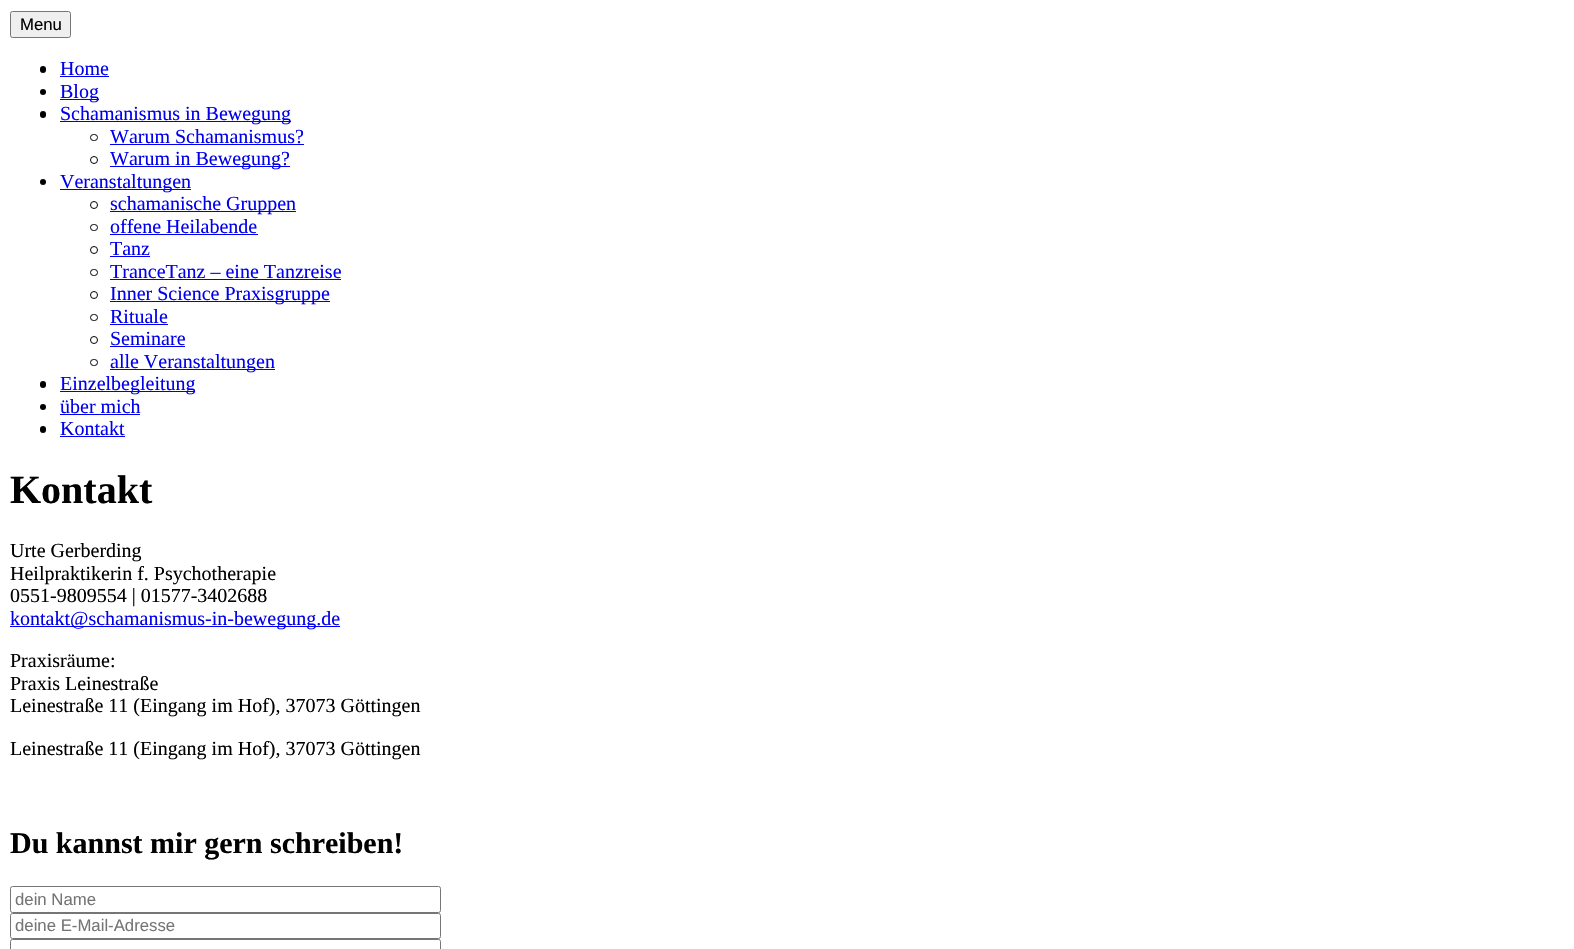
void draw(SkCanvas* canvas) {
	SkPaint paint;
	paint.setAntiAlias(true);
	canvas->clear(0xffffffff);
	paint.setColor(0xffefefef);
	canvas->drawRoundRect(SkRect::MakeXYWH(10.5, 11.5, 60, 26), 2, 2, paint);
	paint.setStroke(true);
	paint.setStrokeWidth(1);
	paint.setColor(0xff767676);
	canvas->drawRoundRect(SkRect::MakeXYWH(10.5, 11.5, 60, 26), 2, 2, paint);
	SkFont f1(fontMgr->matchFamilyStyle("Liberation Sans", SkFontStyle::Normal()), 16.75);
	f1.setSubpixel(true);
	paint.setStroke(false);
	paint.setColor(0xff000000);
	canvas->drawString("Menu", 20, 30, f1, paint);
	canvas->drawRoundRect(SkRect::MakeXYWH(40, 66, 6, 7), 3, 3, paint);
	SkFont f2(fontMgr->matchFamilyStyle("Liberation Serif", SkFontStyle::Normal()), 20);
	f2.setSubpixel(true);
	paint.setColor(0xff0000ee);
	canvas->drawString("Home", 60, 75, f2, paint);
	canvas->drawRect(SkRect::MakeXYWH(60, 76, 49, 1), paint);
	paint.setColor(0xff000000);
	canvas->drawCircle(43, 92, 3, paint);
	paint.setColor(0xff0000ee);
	canvas->drawRect(SkRect::MakeXYWH(60, 99, 39, 1), paint);
	canvas->drawString("Blog", 60, 98, f2, paint);
	paint.setColor(0xff000000);
	canvas->drawRoundRect(SkRect::MakeXYWH(40, 111, 6, 7), 3, 3, paint);
	paint.setColor(0xff0000ee);
	canvas->drawRect(SkRect::MakeXYWH(60, 121, 231, 1), paint);
	canvas->drawString("Schamanismus in Bewegung", 60, 120, f2, paint);
	paint.setStroke(true);
	paint.setColor(0xff000000);
	canvas->drawRoundRect(SkRect::MakeXYWH(90.5, 134.5, 7, 6), 3, 3, paint);
	paint.setStroke(false);
	paint.setColor(0xff0000ee);
	canvas->drawString("Warum Schamanismus?", 110, 143, f2, paint);
	canvas->drawRect(SkRect::MakeXYWH(110, 144, 194, 1), paint);
	paint.setStroke(true);
	paint.setColor(0xff000000);
	canvas->drawCircle(94, 160, 3.5, paint);
	paint.setStroke(false);
	paint.setColor(0xff0000ee);
	canvas->drawRect(SkRect::MakeXYWH(110, 166, 180, 1), paint);
	canvas->drawString("Warum in Bewegung?", 110, 165, f2, paint);
	paint.setColor(0xff000000);
	canvas->drawCircle(43, 182, 3, paint);
	paint.setColor(0xff0000ee);
	canvas->drawRect(SkRect::MakeXYWH(60, 189, 131, 1), paint);
	canvas->drawString("Veranstaltungen", 60, 188, f2, paint);
	paint.setStroke(true);
	paint.setColor(0xff000000);
	canvas->drawCircle(94, 205, 3.5, paint);
	paint.setStroke(false);
	paint.setColor(0xff0000ee);
	canvas->drawRect(SkRect::MakeXYWH(110, 211, 186, 1), paint);
	canvas->drawString("schamanische Gruppen", 110, 210, f2, paint);
	paint.setStroke(true);
	paint.setColor(0xff000000);
	canvas->drawRoundRect(SkRect::MakeXYWH(90.5, 224.5, 7, 6), 3, 3, paint);
	paint.setStroke(false);
	paint.setColor(0xff0000ee);
	canvas->drawString("offene Heilabende", 110, 233, f2, paint);
	canvas->drawRect(SkRect::MakeXYWH(110, 234, 148, 1), paint);
	paint.setStroke(true);
	paint.setColor(0xff000000);
	canvas->drawCircle(94, 250, 3.5, paint);
	paint.setStroke(false);
	paint.setColor(0xff0000ee);
	canvas->drawString("Tanz", 110, 255, f2, paint);
	canvas->drawRect(SkRect::MakeXYWH(110, 256, 40, 1), paint);
	paint.setStroke(true);
	paint.setColor(0xff000000);
	canvas->drawRoundRect(SkRect::MakeXYWH(90.5, 269.5, 7, 6), 3, 3, paint);
	paint.setStroke(false);
	paint.setColor(0xff0000ee);
	canvas->drawString("TranceTanz – eine Tanzreise", 110, 278, f2, paint);
	canvas->drawRect(SkRect::MakeXYWH(110, 279, 231, 1), paint);
	paint.setStroke(true);
	paint.setColor(0xff000000);
	canvas->drawCircle(94, 295, 3.5, paint);
	paint.setStroke(false);
	paint.setColor(0xff0000ee);
	canvas->drawRect(SkRect::MakeXYWH(110, 301, 220, 1), paint);
	canvas->drawString("Inner Science Praxisgruppe", 110, 300, f2, paint);
	paint.setStroke(true);
	paint.setColor(0xff000000);
	canvas->drawRoundRect(SkRect::MakeXYWH(90.5, 314.5, 7, 6), 3, 3, paint);
	paint.setStroke(false);
	paint.setColor(0xff0000ee);
	canvas->drawString("Rituale", 110, 323, f2, paint);
	canvas->drawRect(SkRect::MakeXYWH(110, 324, 58, 1), paint);
	paint.setStroke(true);
	paint.setColor(0xff000000);
	canvas->drawCircle(94, 340, 3.5, paint);
	paint.setStroke(false);
	paint.setColor(0xff0000ee);
	canvas->drawString("Seminare", 110, 345, f2, paint);
	canvas->drawRect(SkRect::MakeXYWH(110, 346, 75, 1), paint);
	paint.setStroke(true);
	paint.setColor(0xff000000);
	canvas->drawRoundRect(SkRect::MakeXYWH(90.5, 359.5, 7, 6), 3, 3, paint);
	paint.setStroke(false);
	paint.setColor(0xff0000ee);
	canvas->drawRect(SkRect::MakeXYWH(110, 369, 165, 1), paint);
	canvas->drawString("alle Veranstaltungen", 110, 368, f2, paint);
	paint.setColor(0xff000000);
	canvas->drawRoundRect(SkRect::MakeXYWH(40, 381, 6, 7), 3, 3, paint);
	paint.setColor(0xff0000ee);
	canvas->drawRect(SkRect::MakeXYWH(60, 391, 135, 1), paint);
	canvas->drawString("Einzelbegleitung", 60, 390, f2, paint);
	paint.setColor(0xff000000);
	canvas->drawCircle(43, 407, 3, paint);
	paint.setColor(0xff0000ee);
	canvas->drawString("über mich", 60, 413, f2, paint);
	canvas->drawRect(SkRect::MakeXYWH(60, 414, 80, 1), paint);
	paint.setColor(0xff000000);
	canvas->drawRoundRect(SkRect::MakeXYWH(40, 426, 6, 7), 3, 3, paint);
	paint.setColor(0xff0000ee);
	canvas->drawString("Kontakt", 60, 435, f2, paint);
	canvas->drawRect(SkRect::MakeXYWH(60, 436, 65, 1), paint);
	SkFont f3(fontMgr->matchFamilyStyle("Liberation Serif", SkFontStyle::Bold()), 40);
	f3.setSubpixel(true);
	paint.setColor(0xff000000);
	canvas->drawString("Kontakt", 10, 503, f3, paint);
	canvas->drawString("Urte Gerberding", 10, 557, f2, paint);
	canvas->drawString("Heilpraktikerin f. Psychotherapie", 10, 580, f2, paint);
	canvas->drawString("0551-9809554 | 01577-3402688", 10, 602, f2, paint);
	paint.setColor(0xff0000ee);
	canvas->drawRect(SkRect::MakeXYWH(10, 626, 330, 1), paint);
	canvas->drawString("kontakt@schamanismus-in-bewegung.de", 10, 625, f2, paint);
	paint.setColor(0xff000000);
	canvas->drawString("Praxisräume:", 10, 667, f2, paint);
	canvas->drawString("Praxis Leinestraße", 10, 690, f2, paint);
	canvas->drawString("Leinestraße 11 (Eingang im Hof), 37073 Göttingen", 10, 712, f2, paint);
	canvas->drawString("Leinestraße 11 (Eingang im Hof), 37073 Göttingen", 10, 755, f2, paint);
	SkFont f4(fontMgr->matchFamilyStyle("Liberation Serif", SkFontStyle::Bold()), 30);
	f4.setSubpixel(true);
	canvas->drawString("Du kannst mir gern schreiben!", 10, 853, f4, paint);
	paint.setStroke(true);
	paint.setColor(0xff767676);
	canvas->drawRoundRect(SkRect::MakeXYWH(10.5, 886.5, 430, 26), 2, 2, paint);
	paint.setStroke(false);
	paint.setColor(0xff757575);
	canvas->drawString("dein Name", 15, 905, f1, paint);
	paint.setStroke(true);
	paint.setColor(0xff767676);
	canvas->drawRoundRect(SkRect::MakeXYWH(10.5, 913.5, 430, 25), 2, 2, paint);
	paint.setStroke(false);
	paint.setColor(0xff757575);
	canvas->drawString("deine E-Mail-Adresse", 15, 931, f1, paint);
	paint.setStroke(true);
	paint.setColor(0xff767676);
	canvas->drawRoundRect(SkRect::MakeXYWH(10.5, 939.5, 430, 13), 2, 2, paint);
}
